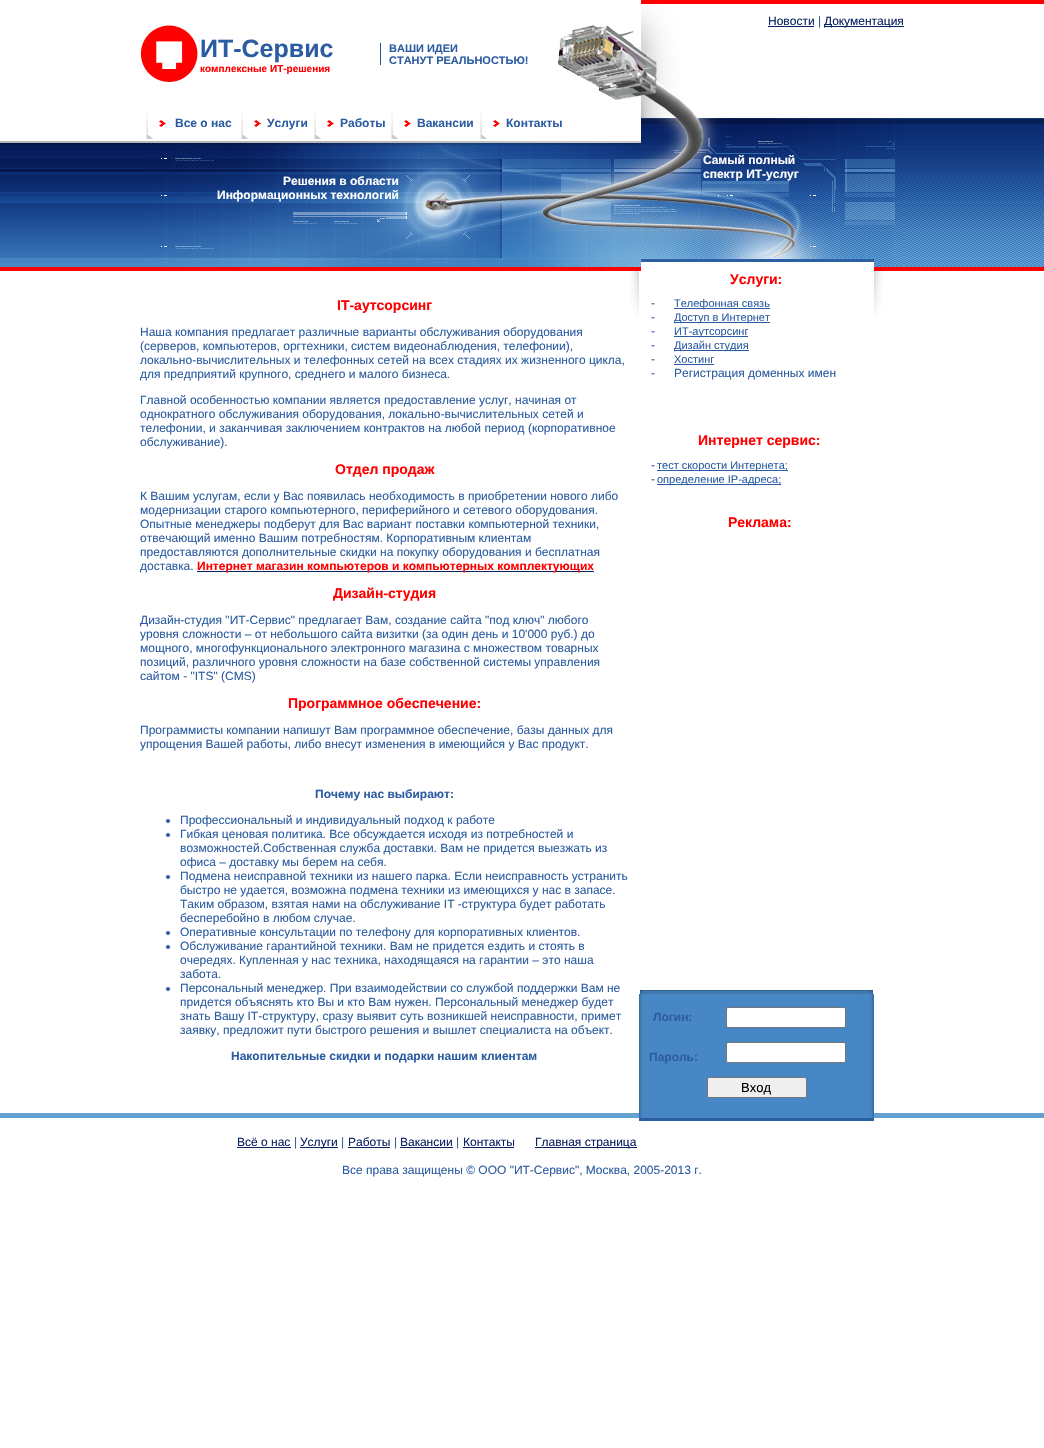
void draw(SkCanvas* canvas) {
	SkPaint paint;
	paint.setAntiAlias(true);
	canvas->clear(0xffffffff);
	canvas->drawImageRect(SkImages::DeferredFromEncodedData(SkData::MakeFromFileName("img1.png")), SkRect::MakeXYWH(0, 141, 140, 130), SkSamplingOptions());
	canvas->drawImageRect(SkImages::DeferredFromEncodedData(SkData::MakeFromFileName("img2.png")), SkRect::MakeXYWH(140, 0, 764, 271), SkSamplingOptions());
	SkFont f1(fontMgr->matchFamilyStyle("Liberation Sans", SkFontStyle::Normal()), 12);
	f1.setSubpixel(true);
	paint.setColor(0xff09215f);
	canvas->drawString("Новости", 768, 25, f1, paint);
	canvas->drawRect(SkRect::MakeXYWH(768, 26, 46, 1), paint);
	paint.setColor(0xff2b5ca1);
	canvas->drawString("|", 818, 25, f1, paint);
	paint.setColor(0xff09215f);
	canvas->drawRect(SkRect::MakeXYWH(824, 26, 80, 1), paint);
	canvas->drawString("Документация", 824, 25, f1, paint);
	canvas->drawImageRect(SkImages::DeferredFromEncodedData(SkData::MakeFromFileName("img3.png")), SkRect::MakeXYWH(140, 25, 58, 57), SkSamplingOptions());
	SkFont f2(fontMgr->matchFamilyStyle("Liberation Sans", SkFontStyle::Bold()), 25);
	f2.setSubpixel(true);
	paint.setColor(0xff2b5ca1);
	canvas->drawString("ИТ-Сервис", 200, 57, f2, paint);
	SkFont f3(fontMgr->matchFamilyStyle("Liberation Sans", SkFontStyle::Bold()), 10);
	f3.setSubpixel(true);
	paint.setColor(0xffff0000);
	canvas->drawString("комплексные ИТ-решения", 200, 72, f3, paint);
	paint.setColor(0xff21569c);
	canvas->drawRect(SkRect::MakeXYWH(380, 43, 1, 22), paint);
	SkFont f4(fontMgr->matchFamilyStyle("Liberation Sans", SkFontStyle::Bold()), 11);
	f4.setSubpixel(true);
	paint.setColor(0xff2b5ca1);
	canvas->drawString("ВАШИ ИДЕИ", 389, 52, f4, paint);
	canvas->drawString("СТАНУТ РЕАЛЬНОСТЬЮ!", 389, 64, f4, paint);
	canvas->drawImageRect(SkImages::DeferredFromEncodedData(SkData::MakeFromFileName("img4.png")), SkRect::MakeXYWH(146, 111, 22, 28), SkSamplingOptions());
	SkFont f5(fontMgr->matchFamilyStyle("Liberation Sans", SkFontStyle::Bold()), 12);
	f5.setSubpixel(true);
	canvas->drawString("Все о нас", 175, 127, f5, paint);
	canvas->drawImageRect(SkImages::DeferredFromEncodedData(SkData::MakeFromFileName("img4.png")), SkRect::MakeXYWH(241, 111, 22, 28), SkSamplingOptions());
	canvas->drawString("Услуги", 267, 127, f5, paint);
	canvas->drawImageRect(SkImages::DeferredFromEncodedData(SkData::MakeFromFileName("img4.png")), SkRect::MakeXYWH(314, 111, 22, 28), SkSamplingOptions());
	canvas->drawString("Работы", 340, 127, f5, paint);
	canvas->drawImageRect(SkImages::DeferredFromEncodedData(SkData::MakeFromFileName("img4.png")), SkRect::MakeXYWH(391, 111, 22, 28), SkSamplingOptions());
	canvas->drawString("Вакансии", 417, 127, f5, paint);
	canvas->drawImageRect(SkImages::DeferredFromEncodedData(SkData::MakeFromFileName("img4.png")), SkRect::MakeXYWH(480, 111, 22, 28), SkSamplingOptions());
	canvas->drawString("Контакты", 506, 127, f5, paint);
	paint.setColor(0xffffffff);
	canvas->drawString("Самый полный", 703, 164, f5, paint);
	canvas->drawString("спектр ИТ-услуг", 703, 178, f5, paint);
	canvas->drawString("Решения в области", 283, 185, f5, paint);
	canvas->drawString("Информационных технологий", 217, 199, f5, paint);
	canvas->drawImageRect(SkImages::DeferredFromEncodedData(SkData::MakeFromFileName("img5.png")), SkRect::MakeXYWH(904, 0, 140, 271), SkSamplingOptions());
	SkFont f6(fontMgr->matchFamilyStyle("Liberation Sans", SkFontStyle::Bold()), 14);
	f6.setSubpixel(true);
	paint.setColor(0xffff0000);
	canvas->drawString("IT-аутсорсинг", 337, 310, f6, paint);
	paint.setColor(0xff2b5ca1);
	canvas->drawString("Наша компания предлагает различные варианты обслуживания оборудования", 140, 336, f1, paint);
	canvas->drawString("(серверов, компьютеров, оргтехники, систем видеонаблюдения, телефонии),", 140, 350, f1, paint);
	canvas->drawString("локально-вычислительных и телефонных сетей на всех стадиях их жизненного цикла,", 140, 364, f1, paint);
	canvas->drawString("для предприятий крупного, среднего и малого бизнеса.", 140, 378, f1, paint);
	canvas->drawString("Главной особенностью компании является предоставление услуг, начиная от", 140, 404, f1, paint);
	canvas->drawString("однократного обслуживания оборудования, локально-вычислительных сетей и", 140, 418, f1, paint);
	canvas->drawString("телефонии, и заканчивая заключением контрактов на любой период (корпоративное", 140, 432, f1, paint);
	canvas->drawString("обслуживание).", 140, 446, f1, paint);
	paint.setColor(0xffff0000);
	canvas->drawString("Отдел продаж", 335, 474, f6, paint);
	paint.setColor(0xff2b5ca1);
	canvas->drawString("К Вашим услугам, если у Вас появилась необходимость в приобретении нового либо", 140, 500, f1, paint);
	canvas->drawString("модернизации старого компьютерного, периферийного и сетевого оборудования.", 140, 514, f1, paint);
	canvas->drawString("Опытные менеджеры подберут для Вас вариант поставки компьютерной техники,", 140, 528, f1, paint);
	canvas->drawString("отвечающий именно Вашим потребностям. Корпоративным клиентам", 140, 542, f1, paint);
	canvas->drawString("предоставляются дополнительные скидки на покупку оборудования и бесплатная", 140, 556, f1, paint);
	canvas->drawString("доставка.", 140, 570, f1, paint);
	paint.setColor(0xff09215f);
	canvas->drawRect(SkRect::MakeXYWH(197, 571, 397, 1), paint);
	paint.setColor(0xffff0000);
	canvas->drawString("Интернет магазин компьютеров и компьютерных комплектующих", 197, 570, f5, paint);
	canvas->drawString("Дизайн-студия", 333, 598, f6, paint);
	paint.setColor(0xff2b5ca1);
	canvas->drawString("Дизайн-студия \"ИТ-Сервис\" предлагает Вам, создание сайта \"под ключ\" любого", 140, 624, f1, paint);
	canvas->drawString("уровня сложности – от небольшого сайта визитки (за один день и 10'000 руб.) до", 140, 638, f1, paint);
	canvas->drawString("мощного, многофункционального электронного магазина с множеством товарных", 140, 652, f1, paint);
	canvas->drawString("позиций, различного уровня сложности на базе собственной системы управления", 140, 666, f1, paint);
	canvas->drawString("сайтом - \"ITS\" (CMS)", 140, 680, f1, paint);
	paint.setColor(0xffff0000);
	canvas->drawString("Программное обеспечение:", 288, 708, f6, paint);
	paint.setColor(0xff2b5ca1);
	canvas->drawString("Программисты компании напишут Вам программное обеспечение, базы данных для", 140, 734, f1, paint);
	canvas->drawString("упрощения Вашей работы, либо внесут изменения в имеющийся у Вас продукт.", 140, 748, f1, paint);
	canvas->drawString("Почему нас выбирают:", 315, 798, f5, paint);
	canvas->drawCircle(168, 821, 2, paint);
	canvas->drawString("Профессиональный и индивидуальный подход к работе", 180, 824, f1, paint);
	canvas->drawCircle(168, 835, 2, paint);
	canvas->drawString("Гибкая ценовая политика. Все обсуждается исходя из потребностей и", 180, 838, f1, paint);
	canvas->drawString("возможностей.Собственная служба доставки. Вам не придется выезжать из", 180, 852, f1, paint);
	canvas->drawString("офиса – доставку мы берем на себя.", 180, 866, f1, paint);
	canvas->drawCircle(168, 877, 2, paint);
	canvas->drawString("Подмена неисправной техники из нашего парка. Если неисправность устранить", 180, 880, f1, paint);
	canvas->drawString("быстро не удается, возможна подмена техники из имеющихся у нас в запасе.", 180, 894, f1, paint);
	canvas->drawString("Таким образом, взятая нами на обслуживание IT -структура будет работать", 180, 908, f1, paint);
	canvas->drawString("бесперебойно в любом случае.", 180, 922, f1, paint);
	canvas->drawCircle(168, 933, 2, paint);
	canvas->drawString("Оперативные консультации по телефону для корпоративных клиентов.", 180, 936, f1, paint);
	canvas->drawCircle(168, 947, 2, paint);
	canvas->drawString("Обслуживание гарантийной техники. Вам не придется ездить и стоять в", 180, 950, f1, paint);
	canvas->drawString("очередях. Купленная у нас техника, находящаяся на гарантии – это наша", 180, 964, f1, paint);
	canvas->drawString("забота.", 180, 978, f1, paint);
	canvas->drawCircle(168, 989, 2, paint);
	canvas->drawString("Персональный менеджер. При взаимодействии со службой поддержки Вам не", 180, 992, f1, paint);
	canvas->drawString("придется объяснять кто Вы и кто Вам нужен. Персональный менеджер будет", 180, 1006, f1, paint);
	canvas->drawString("знать Вашу IT-структуру, сразу выявит суть возникшей неисправности, примет", 180, 1020, f1, paint);
	canvas->drawString("заявку, предложит пути быстрого решения и вышлет специалиста на объект.", 180, 1034, f1, paint);
	canvas->drawString("Накопительные скидки и подарки нашим клиентам", 231, 1060, f5, paint);
	canvas->drawImageRect(SkImages::DeferredFromEncodedData(SkData::MakeFromFileName("img6.png")), SkRect::MakeXYWH(630, 271, 9, 47), SkSamplingOptions());
	paint.setColor(0xffff0000);
	canvas->drawString("Услуги:", 730, 284, f6, paint);
	paint.setColor(0xff2b5ca1);
	canvas->drawString("-", 651, 307, f1, paint);
	canvas->drawRect(SkRect::MakeXYWH(674, 308, 96, 1), paint);
	SkFont f7(fontMgr->matchFamilyStyle("Liberation Sans", SkFontStyle::Normal()), 11);
	f7.setSubpixel(true);
	canvas->drawString("Телефонная связь", 674, 307, f7, paint);
	canvas->drawString("-", 651, 321, f1, paint);
	canvas->drawRect(SkRect::MakeXYWH(674, 322, 96, 1), paint);
	canvas->drawString("Доступ в Интернет", 674, 321, f7, paint);
	canvas->drawString("-", 651, 335, f1, paint);
	canvas->drawRect(SkRect::MakeXYWH(674, 336, 74, 1), paint);
	canvas->drawString("ИТ-аутсорсинг", 674, 335, f7, paint);
	canvas->drawString("-", 651, 349, f1, paint);
	canvas->drawRect(SkRect::MakeXYWH(674, 350, 75, 1), paint);
	canvas->drawString("Дизайн студия", 674, 349, f7, paint);
	canvas->drawString("-", 651, 363, f1, paint);
	canvas->drawString("Хостинг", 674, 363, f7, paint);
	canvas->drawRect(SkRect::MakeXYWH(674, 364, 40, 1), paint);
	canvas->drawString("-", 651, 377, f1, paint);
	canvas->drawString("Регистрация доменных имен", 674, 377, f1, paint);
	paint.setColor(0xffff0000);
	canvas->drawString("Интернет сервис:", 698, 445, f6, paint);
	paint.setColor(0xff2b5ca1);
	canvas->drawString("-", 651, 469, f1, paint);
	canvas->drawRect(SkRect::MakeXYWH(657, 470, 131, 1), paint);
	canvas->drawString("тест скорости Интернета;", 657, 469, f7, paint);
	canvas->drawString("-", 651, 483, f1, paint);
	canvas->drawRect(SkRect::MakeXYWH(657, 484, 124, 1), paint);
	canvas->drawString("определение IP-адреса;", 657, 483, f7, paint);
	paint.setColor(0xffff0000);
	canvas->drawString("Реклама:", 728, 527, f6, paint);
	canvas->drawImageRect(SkImages::DeferredFromEncodedData(SkData::MakeFromFileName("img7.png")), SkRect::MakeXYWH(874, 271, 9, 47), SkSamplingOptions());
	canvas->drawImageRect(SkImages::DeferredFromEncodedData(SkData::MakeFromFileName("img8.png")), SkRect::MakeXYWH(640, 990, 233, 4), SkSamplingOptions());
	canvas->drawImageRect(SkImages::DeferredFromEncodedData(SkData::MakeFromFileName("img9.png")), SkRect::MakeXYWH(639, 994, 235, 119), SkSamplingOptions());
	paint.setColor(0xff2b5ca1);
	canvas->drawString("Логин:", 653, 1021, f5, paint);
	paint.setColor(0xffffffff);
	canvas->drawRoundRect(SkRect::MakeXYWH(726.5, 1007.5, 119, 20), 1.5, 1.5, paint);
	paint.setStroke(true);
	paint.setStrokeWidth(1);
	paint.setColor(0xff767676);
	canvas->drawRoundRect(SkRect::MakeXYWH(726.5, 1007.5, 119, 20), 1.5, 1.5, paint);
	paint.setStroke(false);
	paint.setColor(0xff2b5ca1);
	canvas->drawString("Пароль:", 649, 1061, f5, paint);
	paint.setColor(0xffffffff);
	canvas->drawRoundRect(SkRect::MakeXYWH(726.5, 1042.5, 119, 20), 1.5, 1.5, paint);
	paint.setStroke(true);
	paint.setColor(0xff767676);
	canvas->drawRoundRect(SkRect::MakeXYWH(726.5, 1042.5, 119, 20), 1.5, 1.5, paint);
	paint.setStroke(false);
	paint.setColor(0xffefefef);
	canvas->drawRoundRect(SkRect::MakeXYWH(707.5, 1077.5, 99, 20), 1.5, 1.5, paint);
	paint.setStroke(true);
	paint.setColor(0xff767676);
	canvas->drawRoundRect(SkRect::MakeXYWH(707.5, 1077.5, 99, 20), 1.5, 1.5, paint);
	SkFont f8(fontMgr->matchFamilyStyle("Liberation Sans", SkFontStyle::Normal()), 13);
	f8.setSubpixel(true);
	paint.setStroke(false);
	paint.setColor(0xff000000);
	canvas->drawString("Вход", 741, 1092, f8, paint);
	paint.setColor(0xff63a1d0);
	canvas->drawRect(SkRect::MakeXYWH(0, 1113, 639, 5), paint);
	canvas->drawImageRect(SkImages::DeferredFromEncodedData(SkData::MakeFromFileName("img10.png")), SkRect::MakeXYWH(639, 1113, 235, 8), SkSamplingOptions());
	canvas->drawRect(SkRect::MakeXYWH(874, 1113, 170, 5), paint);
	paint.setColor(0xff09215f);
	canvas->drawString("Всё о нас", 237, 1146, f1, paint);
	canvas->drawRect(SkRect::MakeXYWH(237, 1147, 54, 1), paint);
	paint.setColor(0xff2b5ca1);
	canvas->drawString("|", 294, 1146, f1, paint);
	paint.setColor(0xff09215f);
	canvas->drawRect(SkRect::MakeXYWH(300, 1147, 38, 1), paint);
	canvas->drawString("Услуги", 300, 1146, f1, paint);
	paint.setColor(0xff2b5ca1);
	canvas->drawString("|", 341, 1146, f1, paint);
	paint.setColor(0xff09215f);
	canvas->drawString("Работы", 348, 1146, f1, paint);
	canvas->drawRect(SkRect::MakeXYWH(348, 1147, 42, 1), paint);
	paint.setColor(0xff2b5ca1);
	canvas->drawString("|", 394, 1146, f1, paint);
	paint.setColor(0xff09215f);
	canvas->drawString("Вакансии", 400, 1146, f1, paint);
	canvas->drawRect(SkRect::MakeXYWH(400, 1147, 53, 1), paint);
	paint.setColor(0xff2b5ca1);
	canvas->drawString("|", 456, 1146, f1, paint);
	paint.setColor(0xff09215f);
	canvas->drawString("Контакты", 463, 1146, f1, paint);
	canvas->drawRect(SkRect::MakeXYWH(463, 1147, 51, 1), paint);
	canvas->drawRect(SkRect::MakeXYWH(535, 1147, 102, 1), paint);
	canvas->drawString("Главная страница", 535, 1146, f1, paint);
	paint.setColor(0xff2b5ca1);
	canvas->drawString("Все права защищены © ООО \"ИТ-Сервис\", Москва, 2005-2013 г.", 342, 1174, f1, paint);
}
